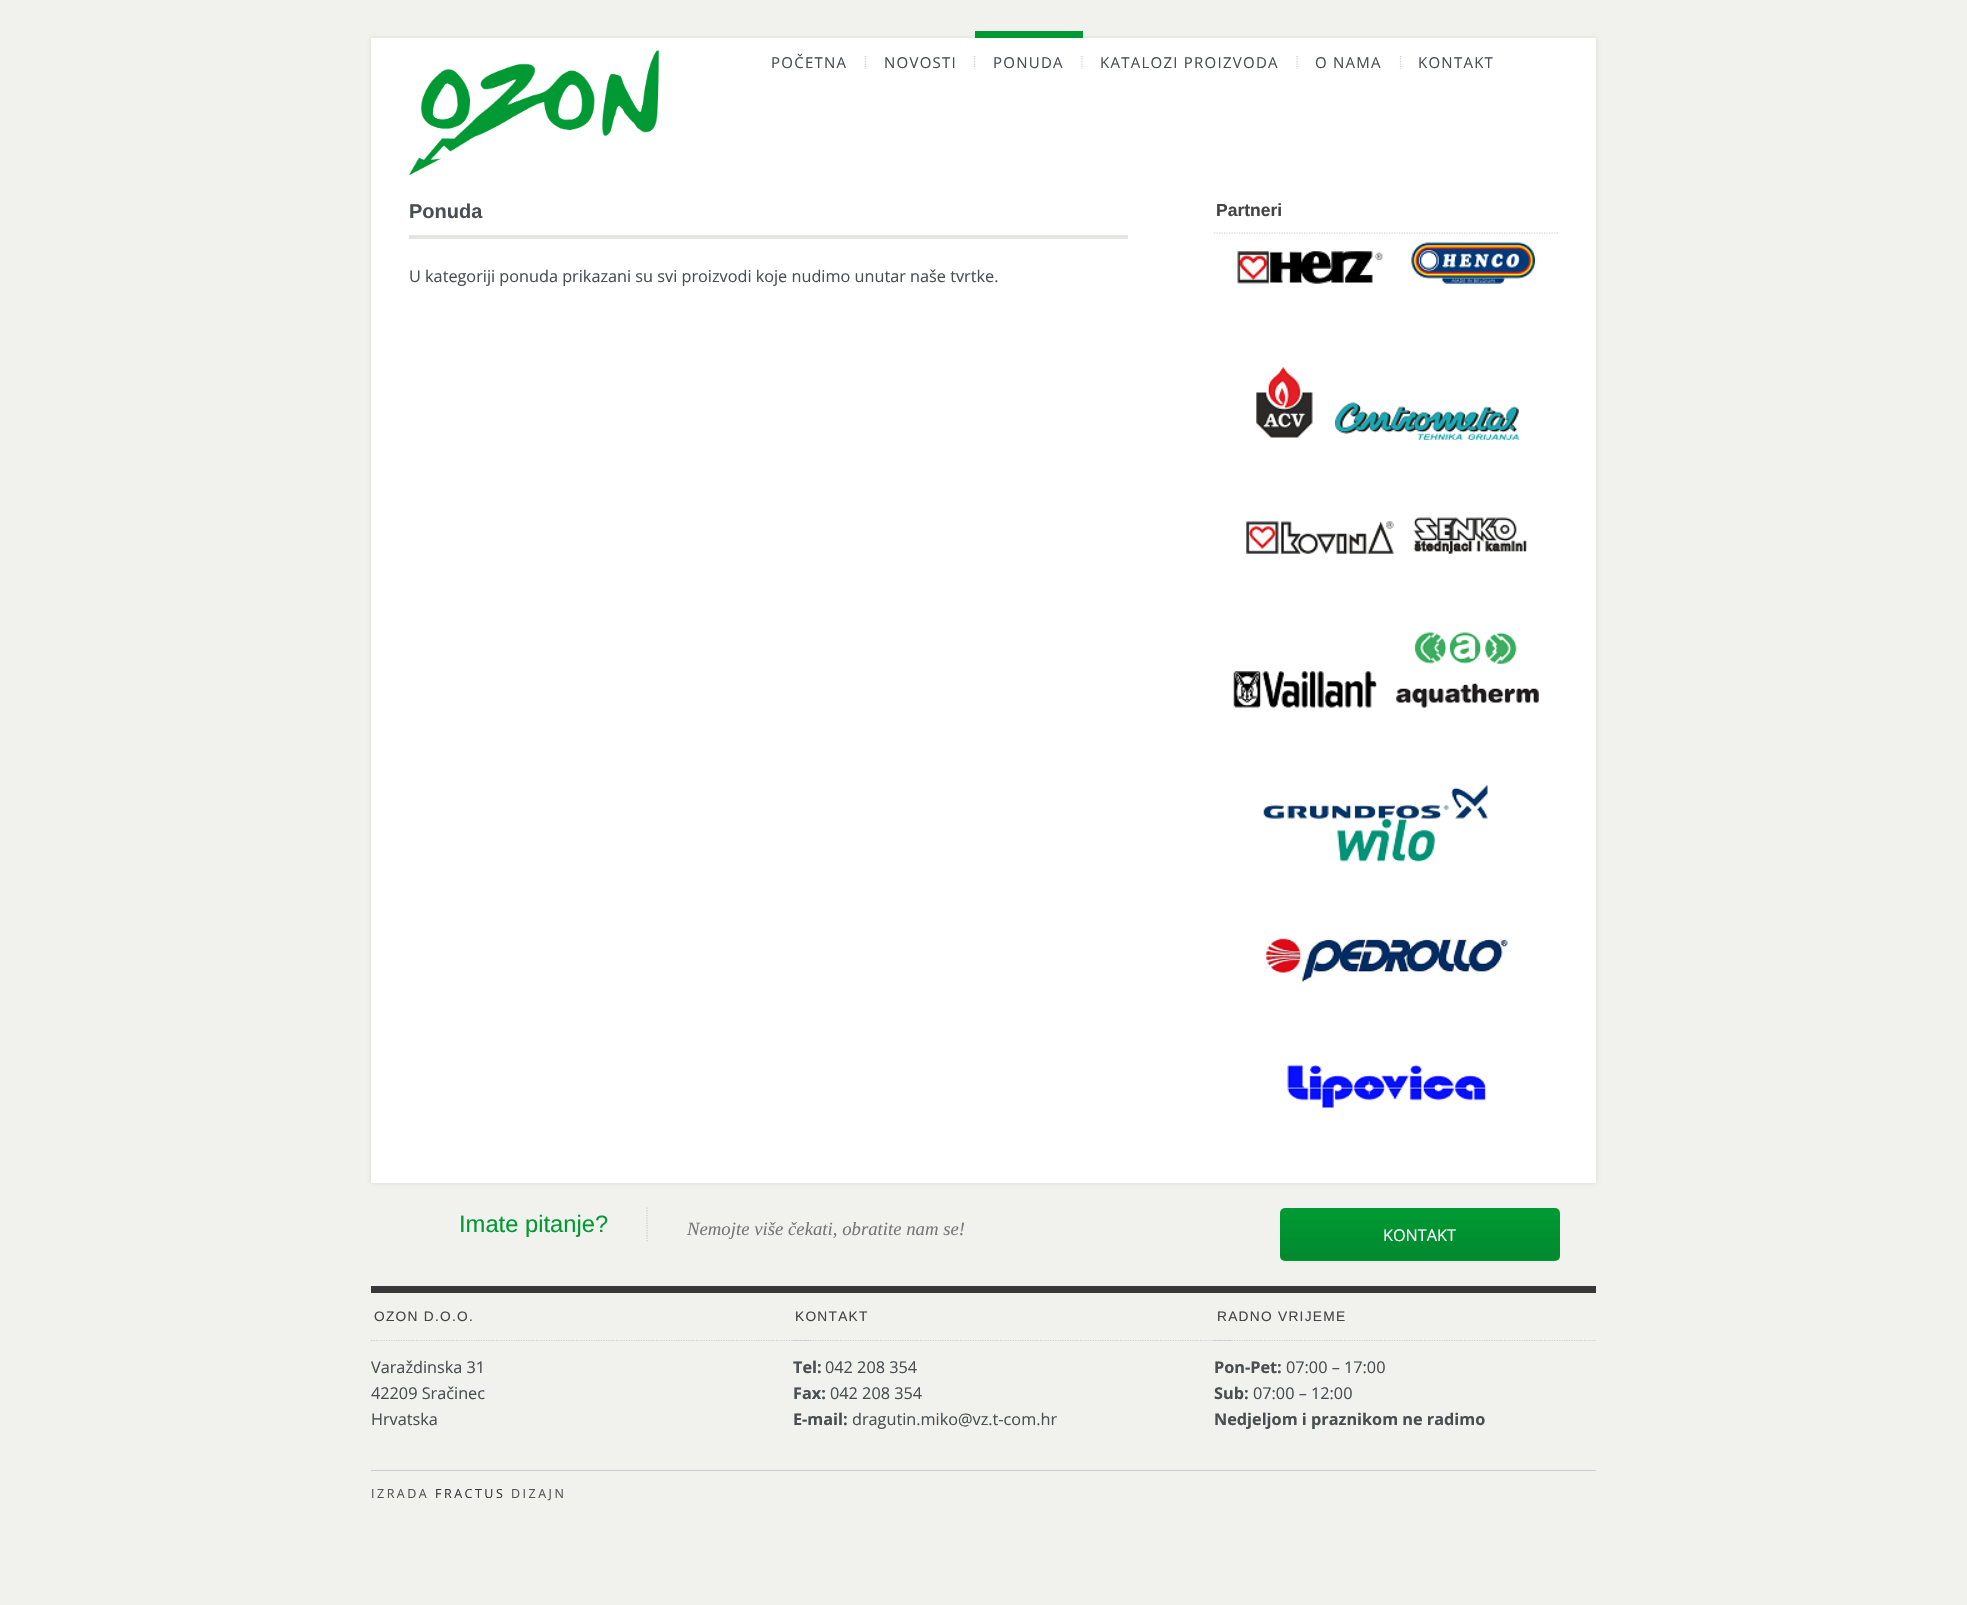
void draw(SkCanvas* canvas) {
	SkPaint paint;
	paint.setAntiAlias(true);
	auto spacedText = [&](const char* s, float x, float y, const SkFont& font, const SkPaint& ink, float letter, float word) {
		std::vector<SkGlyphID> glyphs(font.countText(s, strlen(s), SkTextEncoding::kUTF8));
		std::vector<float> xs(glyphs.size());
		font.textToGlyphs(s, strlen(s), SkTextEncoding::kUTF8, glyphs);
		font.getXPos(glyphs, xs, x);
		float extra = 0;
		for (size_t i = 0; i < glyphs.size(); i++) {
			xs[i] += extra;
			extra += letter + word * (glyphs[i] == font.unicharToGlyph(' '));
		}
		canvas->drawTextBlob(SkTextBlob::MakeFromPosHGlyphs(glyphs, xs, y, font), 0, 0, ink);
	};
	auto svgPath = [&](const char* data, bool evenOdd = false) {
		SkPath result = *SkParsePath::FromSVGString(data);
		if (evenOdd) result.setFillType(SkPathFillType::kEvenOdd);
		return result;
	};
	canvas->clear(0xfff1f1ed);
	paint.setColor(0x1a000000);
	paint.setMaskFilter(SkMaskFilter::MakeBlur(kNormal_SkBlurStyle, 2));
	canvas->drawRect(SkRect::MakeXYWH(371, 38, 1225, 1145), paint);
	paint.setMaskFilter(nullptr);
	paint.setColor(0xffffffff);
	canvas->drawRect(SkRect::MakeXYWH(371, 38, 1225, 1145), paint);
	canvas->drawImageRect(SkImages::DeferredFromEncodedData(SkData::MakeFromFileName("img1.png")), SkRect::MakeXYWH(408, 50, 251, 125), SkSamplingOptions());
	paint.setStroke(true);
	paint.setStrokeWidth(1.2);
	paint.setColor(0xffcccccc);
	paint.setPathEffect(SkDashPathEffect::Make({{1.25f, 1.25f}}, 0));
	canvas->drawPath(svgPath("M865.5 56V69"), paint);
	paint.setPathEffect(nullptr);
	SkFont f1(fontMgr->matchFamilyStyle("Open Sans", SkFontStyle::Normal()), 15);
	f1.setSubpixel(true);
	paint.setStroke(false);
	paint.setColor(0xff4a4e51);
	spacedText("POČETNA", 771, 68, f1, paint, 1.25, 0);
	paint.setStroke(true);
	paint.setColor(0xffcccccc);
	paint.setPathEffect(SkDashPathEffect::Make({{1.25f, 1.25f}}, 0));
	canvas->drawPath(svgPath("M974.5 56V69"), paint);
	paint.setPathEffect(nullptr);
	paint.setStroke(false);
	paint.setColor(0xff4a4e51);
	spacedText("NOVOSTI", 884, 68, f1, paint, 1.25, 0);
	paint.setColor(0xff009933);
	canvas->drawRect(SkRect::MakeXYWH(975, 31, 108, 7), paint);
	paint.setStroke(true);
	paint.setColor(0xffcccccc);
	paint.setPathEffect(SkDashPathEffect::Make({{1.25f, 1.25f}}, 0));
	canvas->drawPath(svgPath("M1082 56V69"), paint);
	paint.setPathEffect(nullptr);
	paint.setStroke(false);
	paint.setColor(0xff4a4e51);
	spacedText("PONUDA", 993, 68, f1, paint, 1.25, 0);
	paint.setStroke(true);
	paint.setColor(0xffcccccc);
	paint.setPathEffect(SkDashPathEffect::Make({{1.25f, 1.25f}}, 0));
	canvas->drawPath(svgPath("M1297 56V69"), paint);
	paint.setPathEffect(nullptr);
	paint.setStroke(false);
	paint.setColor(0xff4a4e51);
	spacedText("KATALOZI PROIZVODA", 1100, 68, f1, paint, 1.25, 0);
	paint.setStroke(true);
	paint.setColor(0xffcccccc);
	paint.setPathEffect(SkDashPathEffect::Make({{1.25f, 1.25f}}, 0));
	canvas->drawPath(svgPath("M1400.5 56V69"), paint);
	paint.setPathEffect(nullptr);
	paint.setStroke(false);
	paint.setColor(0xff4a4e51);
	spacedText("O NAMA", 1315, 68, f1, paint, 1.25, 0);
	spacedText("KONTAKT", 1418, 68, f1, paint, 1.25, 0);
	paint.setColor(0xffe4e4e2);
	canvas->drawRect(SkRect::MakeXYWH(409, 235, 719, 4), paint);
	SkFont f2(fontMgr->matchFamilyStyle("Liberation Sans", SkFontStyle::Bold()), 20);
	f2.setSubpixel(true);
	paint.setColor(0xff4a4e51);
	canvas->drawString("Ponuda", 409, 218, f2, paint);
	SkFont f3(fontMgr->matchFamilyStyle("Open Sans", SkFontStyle::Normal()), 16.25);
	f3.setSubpixel(true);
	canvas->drawString("U kategoriji ponuda prikazani su svi proizvodi koje nudimo unutar naše tvrtke.", 409, 282, f3, paint);
	paint.setStroke(true);
	paint.setColor(0xffcccccc);
	paint.setPathEffect(SkDashPathEffect::Make({{1.25f, 1.25f}}, 0));
	canvas->drawPath(svgPath("M1214 233H1559"), paint);
	paint.setPathEffect(nullptr);
	SkFont f4(fontMgr->matchFamilyStyle("Liberation Sans", SkFontStyle::Bold()), 17.5);
	f4.setSubpixel(true);
	paint.setStroke(false);
	paint.setColor(0xff444444);
	canvas->drawString("Partneri", 1216, 216, f4, paint);
	canvas->drawImageRect(SkImages::DeferredFromEncodedData(SkData::MakeFromFileName("img2.png")), SkRect::MakeXYWH(1237, 251, 146, 33), SkSamplingOptions());
	canvas->drawImageRect(SkImages::DeferredFromEncodedData(SkData::MakeFromFileName("img3.png")), SkRect::MakeXYWH(1411, 242, 124, 42), SkSamplingOptions());
	canvas->drawImageRect(SkImages::DeferredFromEncodedData(SkData::MakeFromFileName("img4.png")), SkRect::MakeXYWH(1256, 367, 57, 71), SkSamplingOptions());
	canvas->drawImageRect(SkImages::DeferredFromEncodedData(SkData::MakeFromFileName("img5.png")), SkRect::MakeXYWH(1335, 402, 184, 38), SkSamplingOptions());
	canvas->drawImageRect(SkImages::DeferredFromEncodedData(SkData::MakeFromFileName("img6.png")), SkRect::MakeXYWH(1246, 521, 148, 33), SkSamplingOptions());
	canvas->drawImageRect(SkImages::DeferredFromEncodedData(SkData::MakeFromFileName("img7.png")), SkRect::MakeXYWH(1413, 517, 114, 37), SkSamplingOptions());
	canvas->drawImageRect(SkImages::DeferredFromEncodedData(SkData::MakeFromFileName("img8.png")), SkRect::MakeXYWH(1233, 671, 144, 37), SkSamplingOptions());
	canvas->drawImageRect(SkImages::DeferredFromEncodedData(SkData::MakeFromFileName("img9.png")), SkRect::MakeXYWH(1396, 632, 143, 76), SkSamplingOptions());
	canvas->drawImageRect(SkImages::DeferredFromEncodedData(SkData::MakeFromFileName("img10.png")), SkRect::MakeXYWH(1263, 785, 225, 34), SkSamplingOptions());
	canvas->drawImageRect(SkImages::DeferredFromEncodedData(SkData::MakeFromFileName("img11.png")), SkRect::MakeXYWH(1337, 818, 98, 44), SkSamplingOptions());
	canvas->drawImageRect(SkImages::DeferredFromEncodedData(SkData::MakeFromFileName("img12.png")), SkRect::MakeXYWH(1266, 938, 242, 45), SkSamplingOptions());
	canvas->drawImageRect(SkImages::DeferredFromEncodedData(SkData::MakeFromFileName("img13.png")), SkRect::MakeXYWH(1287, 1064, 200, 44), SkSamplingOptions());
	paint.setStroke(true);
	paint.setColor(0xffcccccc);
	paint.setPathEffect(SkDashPathEffect::Make({{1.25f, 1.25f}}, 0));
	canvas->drawPath(svgPath("M647 1207.5V1242.5"), paint);
	paint.setPathEffect(nullptr);
	SkFont f5(fontMgr->matchFamilyStyle("Liberation Sans", SkFontStyle::Normal()), 23.75);
	f5.setSubpixel(true);
	paint.setStroke(false);
	paint.setColor(0xff009933);
	canvas->drawString("Imate pitanje?", 459, 1232, f5, paint);
	SkFont f6(fontMgr->matchFamilyStyle("Liberation Serif", SkFontStyle::Italic()), 18.75);
	f6.setSubpixel(true);
	paint.setColor(0xff777777);
	canvas->drawString("Nemojte više čekati, obratite nam se!", 687, 1235, f6, paint);
	paint.setColor(0xff009933);
	canvas->drawRoundRect(SkRect::MakeXYWH(1280, 1208, 280, 53), 5, 5, paint);
	canvas->save();
	canvas->clipPath(svgPath("M1285 1208H1555C1558 1208 1560 1210 1560 1213V1256C1560 1259 1558 1261 1555 1261H1285C1282 1261 1280 1259 1280 1256V1213C1280 1210 1282 1208 1285 1208Z"), true);
	{
		const SkColor colors[] = {0x00000000, 0x1a000000};
		const float stops[] = {0, 1};
		const SkPoint ends[] = {{1420, 1209}, {1420, 1260}};
		paint.setShader(SkGradientShader::MakeLinear(ends, colors, stops, 2, SkTileMode::kClamp));
		paint.setAlpha(255);
	}
	canvas->drawRect(SkRect::MakeXYWH(1280, 1220, 280, 40), paint);
	canvas->restore();
	paint.setShader(nullptr);
	paint.setColor(0xffffffff);
	canvas->drawString("KONTAKT", 1383, 1241, f3, paint);
	paint.setColor(0xff383838);
	canvas->drawRect(SkRect::MakeXYWH(371, 1286, 1225, 7), paint);
	paint.setStroke(true);
	paint.setColor(0xffcccccc);
	paint.setPathEffect(SkDashPathEffect::Make({{1.25f, 1.25f}}, 0));
	canvas->drawPath(svgPath("M371 1340.5H811"), paint);
	paint.setPathEffect(nullptr);
	SkFont f7(fontMgr->matchFamilyStyle("Liberation Sans", SkFontStyle::Normal()), 13.75);
	f7.setSubpixel(true);
	paint.setStroke(false);
	paint.setColor(0xff444444);
	spacedText("OZON D.O.O.", 374, 1321, f7, paint, 1.25, 0);
	paint.setColor(0xff4a4e51);
	canvas->drawString("Varaždinska 31", 371, 1373, f3, paint);
	canvas->drawString("42209 Sračinec", 371, 1399, f3, paint);
	canvas->drawString("Hrvatska", 371, 1425, f3, paint);
	paint.setStroke(true);
	paint.setColor(0xffcccccc);
	paint.setPathEffect(SkDashPathEffect::Make({{1.25f, 1.25f}}, 0));
	canvas->drawPath(svgPath("M792.5 1340.5H1232.5"), paint);
	paint.setPathEffect(nullptr);
	paint.setStroke(false);
	paint.setColor(0xff444444);
	spacedText("KONTAKT", 795, 1321, f7, paint, 1.25, 0);
	SkFont f8(fontMgr->matchFamilyStyle("Open Sans", SkFontStyle::Bold()), 16.25);
	f8.setSubpixel(true);
	paint.setColor(0xff4a4e51);
	canvas->drawString("Tel:", 793, 1373, f8, paint);
	canvas->drawString("042 208 354", 825, 1373, f3, paint);
	canvas->drawString("Fax:", 793, 1399, f8, paint);
	canvas->drawString("042 208 354", 830, 1399, f3, paint);
	canvas->drawString("E-mail:", 793, 1425, f8, paint);
	canvas->drawString("dragutin.miko@vz.t-com.hr", 852, 1425, f3, paint);
	canvas->save();
	canvas->clipRect(SkRect::MakeXYWH(371, 1286, 1225, 159));
	paint.setStroke(true);
	paint.setColor(0xffcccccc);
	paint.setPathEffect(SkDashPathEffect::Make({{1.25f, 1.25f}}, 0));
	canvas->drawPath(svgPath("M1214 1340.5H1654"), paint);
	paint.setPathEffect(nullptr);
	canvas->restore();
	paint.setStroke(false);
	paint.setColor(0xff444444);
	spacedText("RADNO VRIJEME", 1217, 1321, f7, paint, 1.25, 0);
	paint.setColor(0xff4a4e51);
	canvas->drawString("Pon-Pet:", 1214, 1373, f8, paint);
	canvas->drawString("07:00 – 17:00", 1286, 1373, f3, paint);
	canvas->drawString("Sub:", 1214, 1399, f8, paint);
	canvas->drawString("07:00 – 12:00", 1253, 1399, f3, paint);
	canvas->drawString("Nedjeljom i praznikom ne radimo", 1214, 1425, f8, paint);
	paint.setColor(0xffcccccc);
	canvas->drawRect(SkRect::MakeXYWH(371, 1470, 1225, 1), paint);
	SkFont f9(fontMgr->matchFamilyStyle("Open Sans", SkFontStyle::Normal()), 12.5);
	f9.setSubpixel(true);
	paint.setColor(0xff555555);
	spacedText("IZRADA", 371, 1498, f9, paint, 2.5, 0);
	paint.setColor(0xff383838);
	spacedText("FRACTUS", 435, 1498, f9, paint, 2.5, 0);
	paint.setColor(0xff555555);
	spacedText("DIZAJN", 511, 1498, f9, paint, 2.5, 0);
}
